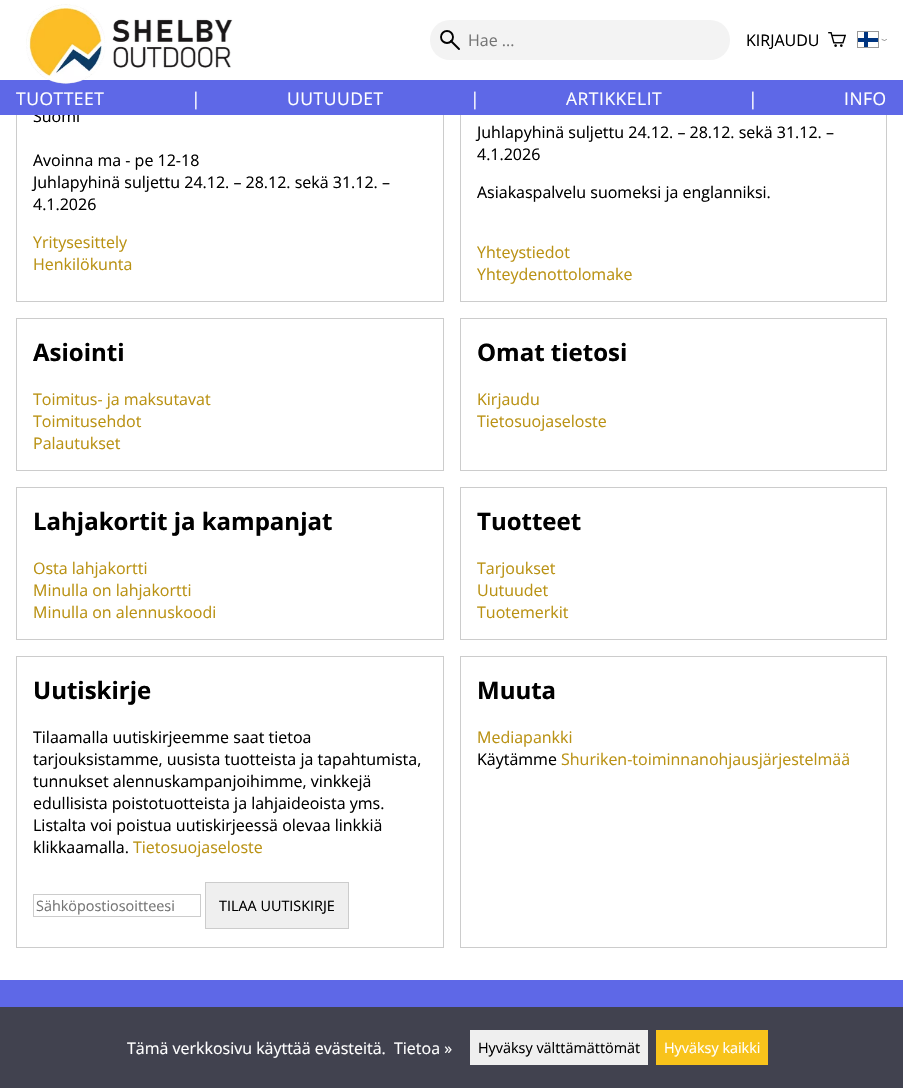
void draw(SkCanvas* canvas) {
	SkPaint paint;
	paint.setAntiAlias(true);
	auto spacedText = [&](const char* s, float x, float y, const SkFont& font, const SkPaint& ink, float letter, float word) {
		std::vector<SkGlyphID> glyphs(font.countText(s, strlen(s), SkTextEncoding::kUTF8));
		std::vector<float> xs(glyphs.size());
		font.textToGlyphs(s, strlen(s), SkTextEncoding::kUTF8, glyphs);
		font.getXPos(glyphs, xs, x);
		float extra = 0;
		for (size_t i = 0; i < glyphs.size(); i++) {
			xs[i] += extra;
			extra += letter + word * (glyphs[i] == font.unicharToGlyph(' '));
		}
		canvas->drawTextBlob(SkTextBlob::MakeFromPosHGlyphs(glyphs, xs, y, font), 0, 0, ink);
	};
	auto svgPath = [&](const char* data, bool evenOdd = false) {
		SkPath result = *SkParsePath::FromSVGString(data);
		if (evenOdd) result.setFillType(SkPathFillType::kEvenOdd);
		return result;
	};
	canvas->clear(0xffffffff);
	paint.setStroke(true);
	paint.setStrokeWidth(1);
	paint.setColor(0xffcccccc);
	canvas->drawRect(SkRect::MakeXYWH(16.5, -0.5, 427, 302), paint);
	canvas->drawRect(SkRect::MakeXYWH(460.5, -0.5, 426, 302), paint);
	paint.setStroke(false);
	paint.setColor(0xffffffff);
	canvas->drawRect(SkRect::MakeXYWH(16, 0, 871, 80), paint);
	SkFont f1(fontMgr->matchFamilyStyle("Open Sans", SkFontStyle::Normal()), 16);
	f1.setSubpixel(true);
	paint.setColor(0xff000000);
	canvas->drawString("Suomi", 33, 122, f1, paint);
	paint.setColor(0xff5e68e7);
	canvas->drawRect(SkRect::MakeXYWH(0, 80, 903, 35), paint);
	canvas->drawImageRect(SkImages::DeferredFromEncodedData(SkData::MakeFromFileName("img1.png")), SkRect::MakeXYWH(26, 4, 207, 80), SkSamplingOptions());
	paint.setColor(0xfff3f3f3);
	canvas->drawRoundRect(SkRect::MakeXYWH(430, 20, 300, 40), 20, 20, paint);
	paint.setStroke(true);
	paint.setStrokeWidth(1.9);
	paint.setStrokeCap(SkPaint::kRound_Cap);
	paint.setColor(0xff000000);
	canvas->drawPath(svgPath("M459 49L451 41"), paint);
	paint.setStrokeCap(SkPaint::kButt_Cap);
	canvas->drawCircle(447, 37, 6, paint);
	paint.setStroke(false);
	paint.setColor(0xff757575);
	canvas->drawString("Hae ...", 468, 46, f1, paint);
	paint.setColor(0xff000000);
	canvas->drawString("KIRJAUDU", 746, 46, f1, paint);
	canvas->drawImageRect(SkImages::DeferredFromEncodedData(SkData::MakeFromFileName("img2.png")), SkRect::MakeXYWH(828, 32, 18, 15), SkSamplingOptions());
	paint.setColor(0xff003580);
	canvas->drawRect(SkRect::MakeXYWH(858, 38, 20, 4), paint);
	canvas->drawRect(SkRect::MakeXYWH(864, 32, 4, 15), paint);
	paint.setStroke(true);
	paint.setStrokeWidth(1);
	paint.setColor(0xff999999);
	canvas->drawRect(SkRect::MakeXYWH(857.5, 31.5, 21, 16), paint);
	paint.setStrokeWidth(0.4);
	paint.setStrokeCap(SkPaint::kRound_Cap);
	paint.setColor(0xff000000);
	canvas->drawPath(svgPath("M882 39.5L884.5 40.5L886.5 39.5"), paint);
	SkFont f2(fontMgr->matchFamilyStyle("Open Sans", SkFontStyle::Normal()), 17.5);
	f2.setSubpixel(true);
	paint.setStroke(false);
	paint.setColor(0xffffffff);
	spacedText("TUOTTEET", 16, 105, f2, paint, 0.5, 0);
	canvas->drawString("|", 191, 105, f2, paint);
	spacedText("UUTUUDET", 287, 105, f2, paint, 0.5, 0);
	canvas->drawString("|", 470, 105, f2, paint);
	spacedText("ARTIKKELIT", 566, 105, f2, paint, 0.5, 0);
	canvas->drawString("|", 748, 105, f2, paint);
	spacedText("INFO", 844, 105, f2, paint, 0.5, 0);
	paint.setColor(0xff000000);
	canvas->drawString("Avoinna ma - pe 12-18", 33, 166, f1, paint);
	canvas->drawString("Juhlapyhinä suljettu 24.12. – 28.12. sekä 31.12. –", 33, 188, f1, paint);
	canvas->drawString("4.1.2026", 33, 210, f1, paint);
	paint.setColor(0xffba9214);
	canvas->drawString("Yritysesittely", 33, 248, f1, paint);
	canvas->drawString("Henkilökunta", 33, 270, f1, paint);
	paint.setColor(0xff000000);
	canvas->drawString("Juhlapyhinä suljettu 24.12. – 28.12. sekä 31.12. –", 477, 138, f1, paint);
	canvas->drawString("4.1.2026", 477, 160, f1, paint);
	canvas->drawString("Asiakaspalvelu suomeksi ja englanniksi.", 477, 198, f1, paint);
	paint.setColor(0xffba9214);
	canvas->drawString("Yhteystiedot", 477, 258, f1, paint);
	canvas->drawString("Yhteydenottolomake", 477, 280, f1, paint);
	paint.setStroke(true);
	paint.setStrokeWidth(1);
	paint.setStrokeCap(SkPaint::kButt_Cap);
	paint.setColor(0xffcccccc);
	canvas->drawRect(SkRect::MakeXYWH(16.5, 318.5, 427, 152), paint);
	SkFont f3(fontMgr->matchFamilyStyle("Open Sans", SkFontStyle::Bold()), 24);
	f3.setSubpixel(true);
	paint.setStroke(false);
	paint.setColor(0xff000000);
	canvas->drawString("Asiointi", 33, 361, f3, paint);
	paint.setColor(0xffba9214);
	canvas->drawString("Toimitus- ja maksutavat", 33, 405, f1, paint);
	canvas->drawString("Toimitusehdot", 33, 427, f1, paint);
	canvas->drawString("Palautukset", 33, 449, f1, paint);
	paint.setStroke(true);
	paint.setColor(0xffcccccc);
	canvas->drawRect(SkRect::MakeXYWH(460.5, 318.5, 426, 152), paint);
	paint.setStroke(false);
	paint.setColor(0xff000000);
	canvas->drawString("Omat tietosi", 477, 361, f3, paint);
	paint.setColor(0xffba9214);
	canvas->drawString("Kirjaudu", 477, 405, f1, paint);
	canvas->drawString("Tietosuojaseloste", 477, 427, f1, paint);
	paint.setStroke(true);
	paint.setColor(0xffcccccc);
	canvas->drawRect(SkRect::MakeXYWH(16.5, 487.5, 427, 152), paint);
	paint.setStroke(false);
	paint.setColor(0xff000000);
	canvas->drawString("Lahjakortit ja kampanjat", 33, 530, f3, paint);
	paint.setColor(0xffba9214);
	canvas->drawString("Osta lahjakortti", 33, 574, f1, paint);
	canvas->drawString("Minulla on lahjakortti", 33, 596, f1, paint);
	canvas->drawString("Minulla on alennuskoodi", 33, 618, f1, paint);
	paint.setStroke(true);
	paint.setColor(0xffcccccc);
	canvas->drawRect(SkRect::MakeXYWH(460.5, 487.5, 426, 152), paint);
	paint.setStroke(false);
	paint.setColor(0xff000000);
	canvas->drawString("Tuotteet", 477, 530, f3, paint);
	paint.setColor(0xffba9214);
	canvas->drawString("Tarjoukset", 477, 574, f1, paint);
	canvas->drawString("Uutuudet", 477, 596, f1, paint);
	canvas->drawString("Tuotemerkit", 477, 618, f1, paint);
	paint.setStroke(true);
	paint.setColor(0xffcccccc);
	canvas->drawRect(SkRect::MakeXYWH(16.5, 656.5, 427, 291), paint);
	paint.setStroke(false);
	paint.setColor(0xff000000);
	canvas->drawString("Uutiskirje", 33, 699, f3, paint);
	canvas->drawString("Tilaamalla uutiskirjeemme saat tietoa", 33, 743, f1, paint);
	canvas->drawString("tarjouksistamme, uusista tuotteista ja tapahtumista,", 33, 765, f1, paint);
	canvas->drawString("tunnukset alennuskampanjoihimme, vinkkejä", 33, 787, f1, paint);
	canvas->drawString("edullisista poistotuotteista ja lahjaideoista yms.", 33, 809, f1, paint);
	canvas->drawString("Listalta voi poistua uutiskirjeessä olevaa linkkiä", 33, 831, f1, paint);
	canvas->drawString("klikkaamalla.", 33, 853, f1, paint);
	paint.setColor(0xffba9214);
	canvas->drawString("Tietosuojaseloste", 133, 853, f1, paint);
	paint.setStroke(true);
	paint.setColor(0xffcccccc);
	canvas->drawRect(SkRect::MakeXYWH(33.5, 894.5, 167, 22), paint);
	SkFont f4(fontMgr->matchFamilyStyle("Open Sans", SkFontStyle::Normal()), 14.4);
	f4.setSubpixel(true);
	paint.setStroke(false);
	paint.setColor(0xff757575);
	canvas->drawString("Sähköpostiosoitteesi", 36, 911, f4, paint);
	paint.setColor(0xffefefef);
	canvas->drawRect(SkRect::MakeXYWH(205.5, 882.5, 143, 46), paint);
	paint.setStroke(true);
	paint.setColor(0xffcccccc);
	canvas->drawRect(SkRect::MakeXYWH(205.5, 882.5, 143, 46), paint);
	paint.setStroke(false);
	paint.setColor(0xff000000);
	canvas->drawString("TILAA UUTISKIRJE", 219, 911, f4, paint);
	paint.setStroke(true);
	paint.setColor(0xffcccccc);
	canvas->drawRect(SkRect::MakeXYWH(460.5, 656.5, 426, 291), paint);
	paint.setStroke(false);
	paint.setColor(0xff000000);
	canvas->drawString("Muuta", 477, 699, f3, paint);
	paint.setColor(0xffba9214);
	canvas->drawString("Mediapankki", 477, 743, f1, paint);
	paint.setColor(0xff000000);
	canvas->drawString("Käytämme", 477, 765, f1, paint);
	paint.setColor(0xffba9214);
	canvas->drawString("Shuriken-toiminnanohjausjärjestelmää", 561, 765, f1, paint);
	paint.setColor(0xff5e68e7);
	canvas->drawRect(SkRect::MakeXYWH(0, 980, 903, 27), paint);
	paint.setColor(0xff41424f);
	canvas->drawRect(SkRect::MakeXYWH(0, 1007, 903, 81), paint);
	paint.setColor(0xffffffff);
	canvas->drawString("Tämä verkkosivu käyttää evästeitä.", 127, 1054, f1, paint);
	canvas->drawString("Tietoa »", 394, 1054, f1, paint);
	paint.setColor(0xffefefef);
	canvas->drawRect(SkRect::MakeXYWH(470, 1030, 178, 35), paint);
	paint.setColor(0xff000000);
	canvas->drawString("Hyväksy välttämättömät", 478, 1053, f4, paint);
	paint.setColor(0xfff8c31b);
	canvas->drawRect(SkRect::MakeXYWH(656, 1030, 112, 35), paint);
	paint.setColor(0xffffffff);
	canvas->drawString("Hyväksy kaikki", 664, 1053, f4, paint);
}
